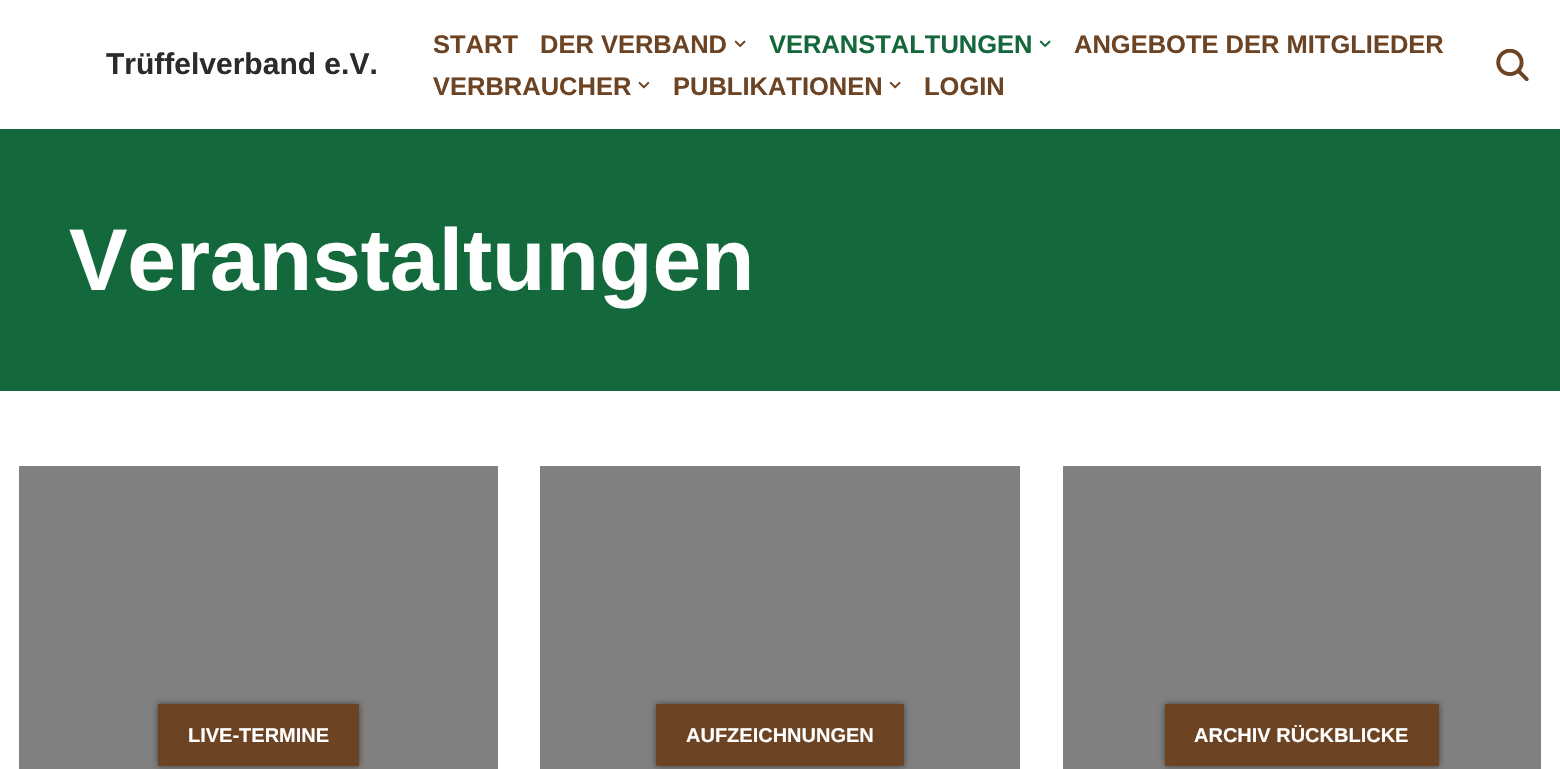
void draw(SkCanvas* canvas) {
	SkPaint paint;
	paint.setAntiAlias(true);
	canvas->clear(0xffffffff);
	SkFont f1(fontMgr->matchFamilyStyle("Liberation Sans", SkFontStyle::Bold()), 30);
	f1.setSubpixel(true);
	paint.setColor(0xff2b2b2b);
	canvas->drawString("Trüffelverband e.V.", 106, 74, f1, paint);
	SkFont f2(fontMgr->matchFamilyStyle("Liberation Sans", SkFontStyle::Bold()), 25.5);
	f2.setSubpixel(true);
	paint.setColor(0xff6c4323);
	canvas->drawString("START", 433, 53, f2, paint);
	canvas->drawString("DER VERBAND", 540, 53, f2, paint);
	canvas->drawImageRect(SkImages::DeferredFromEncodedData(SkData::MakeFromFileName("img1.png")), SkRect::MakeXYWH(734, 40, 12, 8), SkSamplingOptions());
	paint.setColor(0xff14683c);
	canvas->drawString("VERANSTALTUNGEN", 769, 53, f2, paint);
	canvas->drawImageRect(SkImages::DeferredFromEncodedData(SkData::MakeFromFileName("img2.png")), SkRect::MakeXYWH(1039, 40, 12, 8), SkSamplingOptions());
	paint.setColor(0xff6c4323);
	canvas->drawString("ANGEBOTE DER MITGLIEDER", 1074, 53, f2, paint);
	canvas->drawString("VERBRAUCHER", 433, 95, f2, paint);
	canvas->drawImageRect(SkImages::DeferredFromEncodedData(SkData::MakeFromFileName("img3.png")), SkRect::MakeXYWH(638, 81, 12, 8), SkSamplingOptions());
	canvas->drawString("PUBLIKATIONEN", 673, 95, f2, paint);
	canvas->drawImageRect(SkImages::DeferredFromEncodedData(SkData::MakeFromFileName("img4.png")), SkRect::MakeXYWH(889, 81, 12, 8), SkSamplingOptions());
	canvas->drawString("LOGIN", 924, 95, f2, paint);
	canvas->drawImageRect(SkImages::DeferredFromEncodedData(SkData::MakeFromFileName("img5.png")), SkRect::MakeXYWH(1496, 49, 33, 32), SkSamplingOptions());
	paint.setColor(0xff14693c);
	canvas->drawRect(SkRect::MakeXYWH(0, 129, 1560, 262), paint);
	SkFont f3(fontMgr->matchFamilyStyle("Liberation Sans", SkFontStyle::Bold()), 87.5);
	f3.setSubpixel(true);
	paint.setColor(0xffffffff);
	canvas->drawString("Veranstaltungen", 69, 290, f3, paint);
	paint.setColor(0xff808080);
	canvas->drawRect(SkRect::MakeXYWH(19, 466, 479, 303), paint);
	paint.setColor(0x80000000);
	paint.setMaskFilter(SkMaskFilter::MakeBlur(kNormal_SkBlurStyle, 3));
	canvas->drawRect(SkRect::MakeXYWH(158, 704, 201, 62), paint);
	paint.setMaskFilter(nullptr);
	paint.setColor(0xff6c4323);
	canvas->drawRect(SkRect::MakeXYWH(158, 704, 201, 62), paint);
	SkFont f4(fontMgr->matchFamilyStyle("Liberation Sans", SkFontStyle::Bold()), 20);
	f4.setSubpixel(true);
	paint.setColor(0xffffffff);
	canvas->drawString("LIVE-TERMINE", 188, 742, f4, paint);
	paint.setColor(0xff808080);
	canvas->drawRect(SkRect::MakeXYWH(540, 466, 480, 303), paint);
	paint.setColor(0x80000000);
	paint.setMaskFilter(SkMaskFilter::MakeBlur(kNormal_SkBlurStyle, 3));
	canvas->drawRect(SkRect::MakeXYWH(656, 704, 248, 62), paint);
	paint.setMaskFilter(nullptr);
	paint.setColor(0xff6c4323);
	canvas->drawRect(SkRect::MakeXYWH(656, 704, 248, 62), paint);
	paint.setColor(0xffffffff);
	canvas->drawString("AUFZEICHNUNGEN", 686, 742, f4, paint);
	paint.setColor(0xff808080);
	canvas->drawRect(SkRect::MakeXYWH(1063, 466, 478, 303), paint);
	paint.setColor(0x80000000);
	paint.setMaskFilter(SkMaskFilter::MakeBlur(kNormal_SkBlurStyle, 3));
	canvas->drawRect(SkRect::MakeXYWH(1165, 704, 274, 62), paint);
	paint.setMaskFilter(nullptr);
	paint.setColor(0xff6c4323);
	canvas->drawRect(SkRect::MakeXYWH(1165, 704, 274, 62), paint);
	paint.setColor(0xffffffff);
	canvas->drawString("ARCHIV RÜCKBLICKE", 1194, 742, f4, paint);
}
